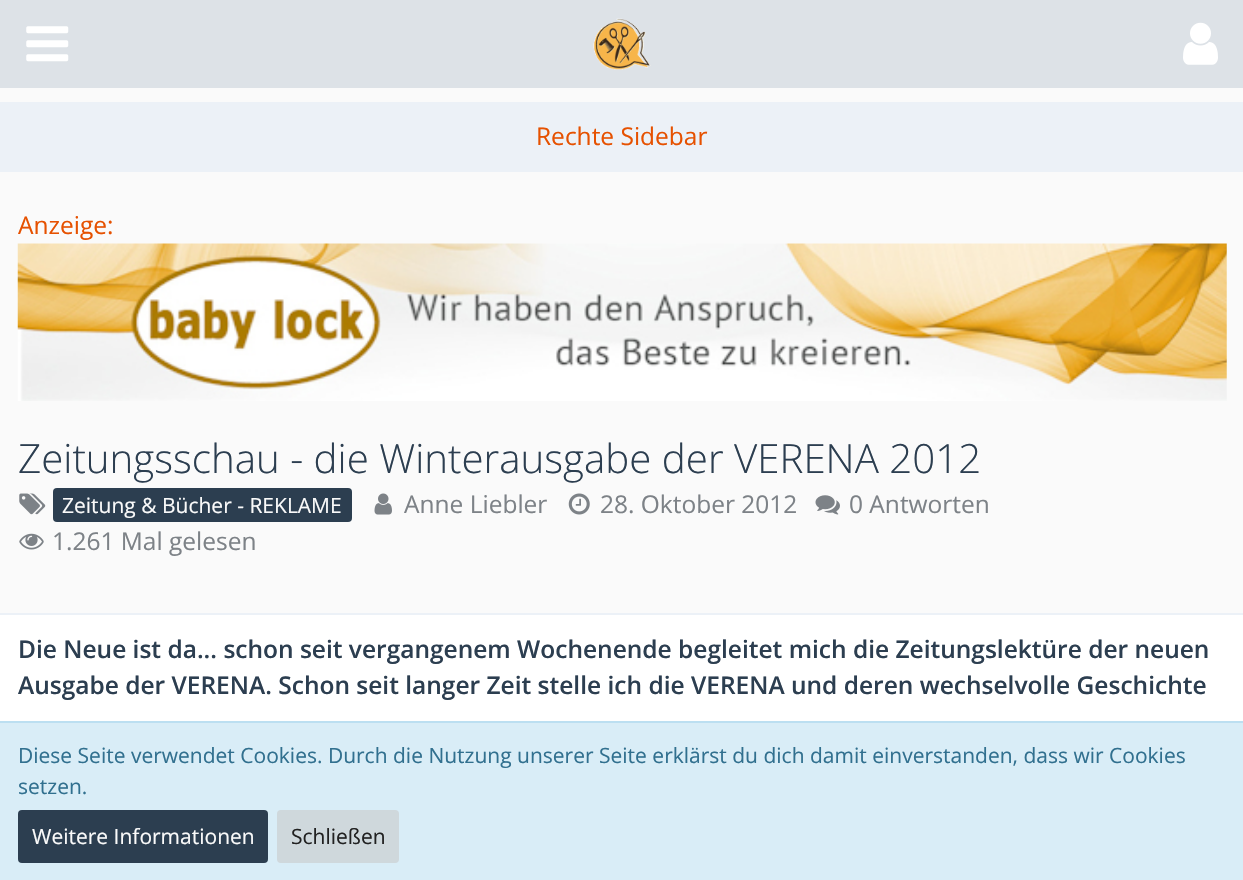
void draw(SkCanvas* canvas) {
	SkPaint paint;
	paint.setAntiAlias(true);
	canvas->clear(0xfffafafa);
	paint.setColor(0xffdde2e7);
	canvas->drawRect(SkRect::MakeXYWH(0, 0, 1243, 88), paint);
	canvas->drawImageRect(SkImages::DeferredFromEncodedData(SkData::MakeFromFileName("img1.png")), SkRect::MakeXYWH(26, 26, 43, 36), SkSamplingOptions());
	canvas->drawImageRect(SkImages::DeferredFromEncodedData(SkData::MakeFromFileName("img2.png")), SkRect::MakeXYWH(1183, 22, 35, 43), SkSamplingOptions());
	canvas->drawImageRect(SkImages::DeferredFromEncodedData(SkData::MakeFromFileName("img3.png")), SkRect::MakeXYWH(593, 18, 58, 52), SkSamplingOptions());
	paint.setColor(0xffecf1f7);
	canvas->drawRect(SkRect::MakeXYWH(0, 102, 1243, 70), paint);
	SkFont f1(fontMgr->matchFamilyStyle("Open Sans", SkFontStyle::Normal()), 24.5);
	f1.setSubpixel(true);
	paint.setColor(0xffe65100);
	canvas->drawString("Rechte Sidebar", 536, 145, f1, paint);
	canvas->drawString("Anzeige:", 18, 234, f1, paint);
	canvas->drawImageRect(SkImages::DeferredFromEncodedData(SkData::MakeFromFileName("img4.png")), SkRect::MakeXYWH(17, 243, 1210, 158), SkSamplingOptions());
	SkFont f2(fontMgr->matchFamilyStyle("Open Sans", SkFontStyle(300, SkFontStyle::kNormal_Width, SkFontStyle::kUpright_Slant)), 40.25);
	f2.setSubpixel(true);
	paint.setColor(0xff2c3e50);
	canvas->drawString("Zeitungsschau - die Winterausgabe der VERENA 2012", 18, 473, f2, paint);
	canvas->drawImageRect(SkImages::DeferredFromEncodedData(SkData::MakeFromFileName("img5.png")), SkRect::MakeXYWH(19, 493, 27, 22), SkSamplingOptions());
	canvas->drawRoundRect(SkRect::MakeXYWH(53, 488, 299, 34), 4, 4, paint);
	SkFont f3(fontMgr->matchFamilyStyle("Open Sans", SkFontStyle::Normal()), 21);
	f3.setSubpixel(true);
	paint.setColor(0xfffafafa);
	canvas->drawString("Zeitung & Bücher - REKLAME", 62, 513, f3, paint);
	canvas->drawImageRect(SkImages::DeferredFromEncodedData(SkData::MakeFromFileName("img6.png")), SkRect::MakeXYWH(374, 493, 18, 22), SkSamplingOptions());
	paint.setColor(0xff7d8287);
	canvas->drawString("Anne Liebler", 404, 513, f1, paint);
	canvas->drawImageRect(SkImages::DeferredFromEncodedData(SkData::MakeFromFileName("img7.png")), SkRect::MakeXYWH(568, 493, 22, 22), SkSamplingOptions());
	canvas->drawString("28. Oktober 2012", 600, 513, f1, paint);
	canvas->drawImageRect(SkImages::DeferredFromEncodedData(SkData::MakeFromFileName("img8.png")), SkRect::MakeXYWH(815, 495, 25, 20), SkSamplingOptions());
	canvas->drawString("0 Antworten", 849, 513, f1, paint);
	canvas->drawImageRect(SkImages::DeferredFromEncodedData(SkData::MakeFromFileName("img9.png")), SkRect::MakeXYWH(19, 533, 25, 17), SkSamplingOptions());
	canvas->drawString("1.261 Mal gelesen", 52, 550, f1, paint);
	paint.setColor(0xffffffff);
	canvas->drawRect(SkRect::MakeXYWH(0, 615, 1243, 106), paint);
	paint.setColor(0xffecf1f7);
	canvas->drawRect(SkRect::MakeXYWH(0, 613, 1243, 2), paint);
	SkFont f4(fontMgr->matchFamilyStyle("Open Sans", SkFontStyle(600, SkFontStyle::kNormal_Width, SkFontStyle::kUpright_Slant)), 24.5);
	f4.setSubpixel(true);
	paint.setColor(0xff2c3e50);
	canvas->drawString("Die Neue ist da... schon seit vergangenem Wochenende begleitet mich die Zeitungslektüre der neuen", 18, 658, f4, paint);
	canvas->drawString("Ausgabe der VERENA. Schon seit langer Zeit stelle ich die VERENA und deren wechselvolle Geschichte", 18, 694, f4, paint);
	paint.setColor(0xffd9edf7);
	canvas->drawRect(SkRect::MakeXYWH(0, 723, 1243, 157), paint);
	paint.setColor(0xffbcdff1);
	canvas->drawRect(SkRect::MakeXYWH(0, 721, 1243, 2), paint);
	paint.setColor(0xff31708f);
	canvas->drawString("Diese Seite verwendet Cookies. Durch die Nutzung unserer Seite erklärst du dich damit einverstanden, dass wir Cookies", 18, 763, f3, paint);
	canvas->drawString("setzen.", 18, 794, f3, paint);
	paint.setColor(0xff2c3e50);
	canvas->drawRoundRect(SkRect::MakeXYWH(18, 810, 250, 53), 4, 4, paint);
	paint.setColor(0xfffafafa);
	canvas->drawString("Weitere Informationen", 32, 844, f3, paint);
	paint.setColor(0xffcfd8dc);
	canvas->drawRoundRect(SkRect::MakeXYWH(277, 810, 122, 53), 4, 4, paint);
	paint.setColor(0xff212121);
	canvas->drawString("Schließen", 291, 844, f3, paint);
}
